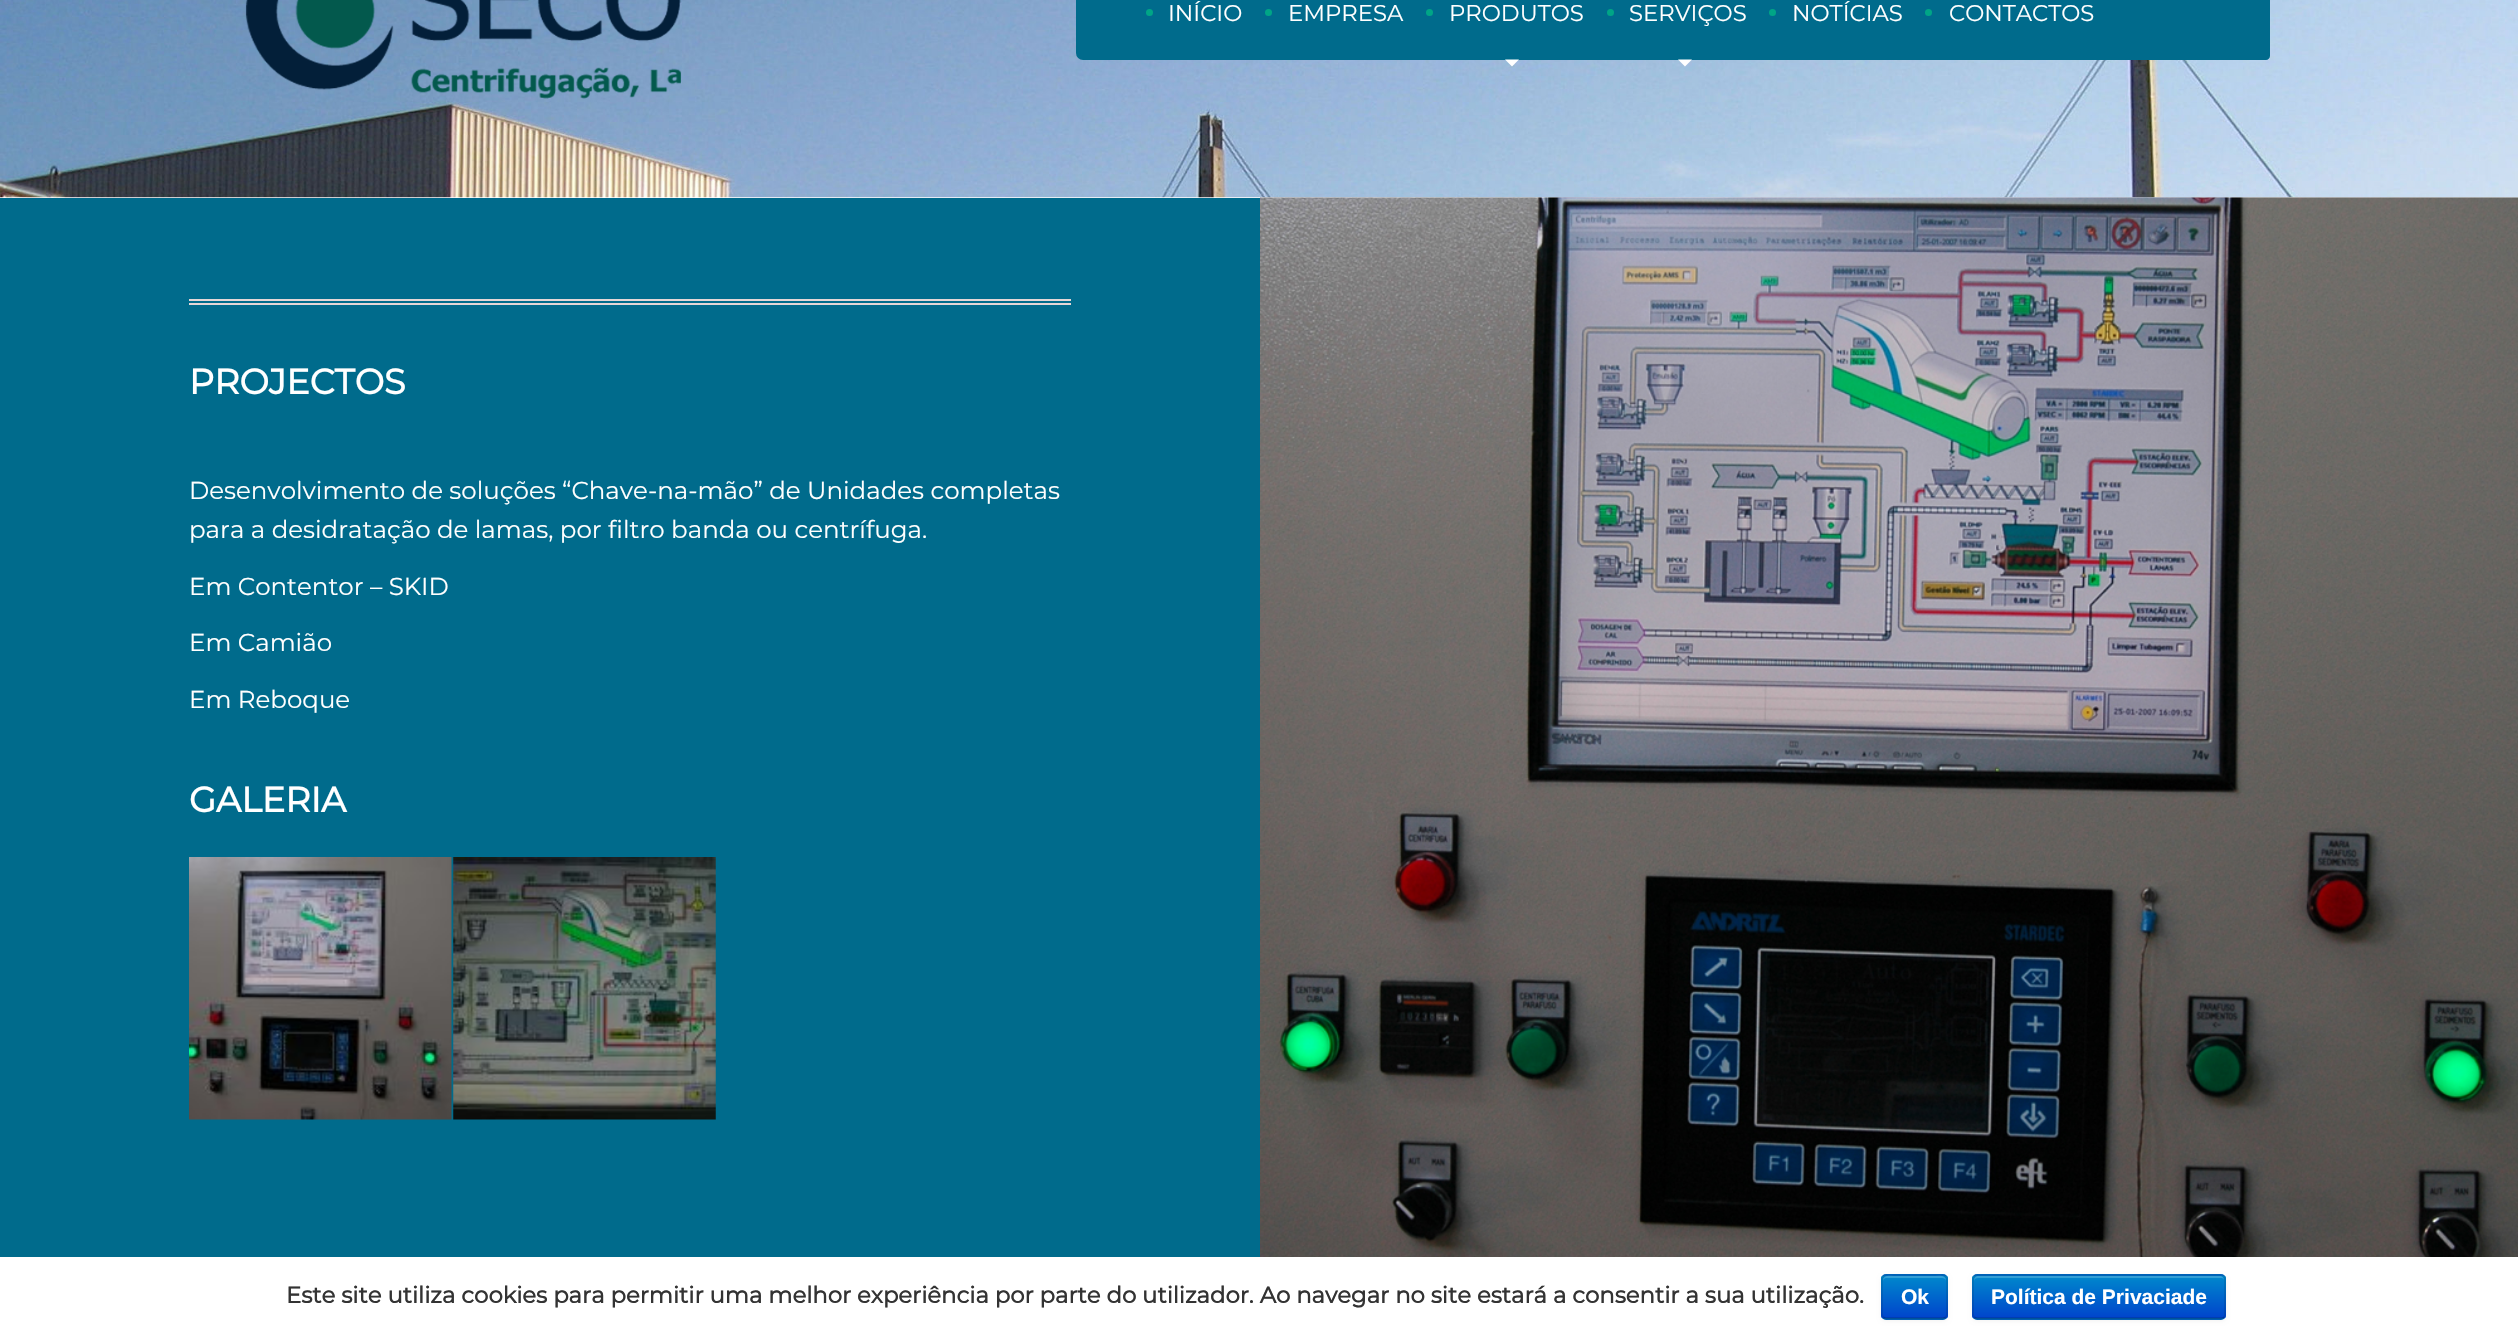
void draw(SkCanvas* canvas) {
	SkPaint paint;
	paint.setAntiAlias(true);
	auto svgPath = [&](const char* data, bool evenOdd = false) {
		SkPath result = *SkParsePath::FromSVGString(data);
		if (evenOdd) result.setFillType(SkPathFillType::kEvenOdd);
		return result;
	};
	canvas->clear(0xffffffff);
	canvas->drawImageRect(SkImages::DeferredFromEncodedData(SkData::MakeFromFileName("img1.png")), SkRect::MakeXYWH(0, 0, 2518, 198), SkSamplingOptions());
	canvas->drawImageRect(SkImages::DeferredFromEncodedData(SkData::MakeFromFileName("img2.png")), SkRect::MakeXYWH(245, 0, 436, 99), SkSamplingOptions());
	paint.setColor(0xff006b8c);
	canvas->drawRoundRect(SkRect::MakeXYWH(1076, -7, 1182, 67), 7, 7, paint);
	paint.setColor(0xff00a586);
	canvas->drawCircle(1149.5, 12.5, 3.5, paint);
	SkFont f1(fontMgr->matchFamilyStyle("Montserrat", SkFontStyle(100, SkFontStyle::kNormal_Width, SkFontStyle::kUpright_Slant)), 22.75);
	f1.setSubpixel(true);
	paint.setColor(0xffffffff);
	canvas->drawString("INÍCIO", 1168, 21, f1, paint);
	paint.setColor(0xff00a586);
	canvas->drawCircle(1268.5, 12.5, 3.5, paint);
	paint.setColor(0xffffffff);
	canvas->drawString("EMPRESA", 1288, 21, f1, paint);
	paint.setColor(0xff00a586);
	canvas->drawCircle(1429.5, 12.5, 3.5, paint);
	paint.setColor(0xffffffff);
	canvas->drawString("PRODUTOS", 1449, 21, f1, paint);
	canvas->drawPath(svgPath("M1505 59.5H1519L1512 66.5Z"), paint);
	paint.setColor(0xff00a586);
	canvas->drawCircle(1610.5, 12.5, 3.5, paint);
	paint.setColor(0xffffffff);
	canvas->drawString("SERVIÇOS", 1629, 21, f1, paint);
	canvas->drawPath(svgPath("M1678 59.5H1692L1685 66.5Z"), paint);
	paint.setColor(0xff00a586);
	canvas->drawCircle(1772.5, 12.5, 3.5, paint);
	paint.setColor(0xffffffff);
	canvas->drawString("NOTÍCIAS", 1792, 21, f1, paint);
	paint.setColor(0xff00a586);
	canvas->drawCircle(1928.5, 12.5, 3.5, paint);
	paint.setColor(0xffffffff);
	canvas->drawString("CONTACTOS", 1949, 21, f1, paint);
	paint.setColor(0xff006b8c);
	canvas->drawPath(svgPath("M2121-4H2266C2268-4 2270-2 2270 0V56C2270 58 2268 60 2266 60H2121Z"), paint);
	canvas->drawRect(SkRect::MakeXYWH(0, 198, 1260, 1059), paint);
	paint.setColor(0xffe5d7d7);
	canvas->drawRect(SkRect::MakeXYWH(189, 299, 882, 2), paint);
	canvas->drawRect(SkRect::MakeXYWH(189, 303, 882, 2), paint);
	SkFont f2(fontMgr->matchFamilyStyle("Montserrat", SkFontStyle::Bold()), 35);
	f2.setSubpixel(true);
	paint.setColor(0xffffffff);
	canvas->drawString("PROJECTOS", 189, 394, f2, paint);
	SkFont f3(fontMgr->matchFamilyStyle("Montserrat", SkFontStyle(100, SkFontStyle::kNormal_Width, SkFontStyle::kUpright_Slant)), 24.5);
	f3.setSubpixel(true);
	canvas->drawString("Desenvolvimento de soluções “Chave-na-mão” de Unidades completas", 189, 499, f3, paint);
	canvas->drawString("para a desidratação de lamas, por filtro banda ou centrífuga.", 189, 538, f3, paint);
	canvas->drawString("Em Contentor – SKID", 189, 595, f3, paint);
	canvas->drawString("Em Camião", 189, 651, f3, paint);
	canvas->drawString("Em Reboque", 189, 708, f3, paint);
	canvas->drawString("GALERIA", 189, 812, f2, paint);
	canvas->drawImageRect(SkImages::DeferredFromEncodedData(SkData::MakeFromFileName("img3.png")), SkRect::MakeXYWH(189, 857, 263, 263), SkSamplingOptions());
	canvas->drawImageRect(SkImages::DeferredFromEncodedData(SkData::MakeFromFileName("img4.png")), SkRect::MakeXYWH(453, 857, 263, 263), SkSamplingOptions());
	canvas->drawImageRect(SkImages::DeferredFromEncodedData(SkData::MakeFromFileName("img5.png")), SkRect::MakeXYWH(1260, 197, 1258, 1060), SkSamplingOptions());
	SkFont f4(fontMgr->matchFamilyStyle("Montserrat", SkFontStyle::Bold()), 22.75);
	f4.setSubpixel(true);
	paint.setColor(0xff333333);
	canvas->drawString("Este site utiliza cookies para permitir uma melhor experiência por parte do utilizador. Ao navegar no site estará a consentir a sua utilização.", 286, 1303, f4, paint);
	paint.setColor(0x0d000000);
	paint.setMaskFilter(SkMaskFilter::MakeBlur(kNormal_SkBlurStyle, 2));
	canvas->drawRoundRect(SkRect::MakeXYWH(1881, 1276, 67, 45), 5, 5, paint);
	paint.setMaskFilter(nullptr);
	paint.setColor(0xff006dcc);
	canvas->drawRoundRect(SkRect::MakeXYWH(1881, 1274, 67, 46), 5, 5, paint);
	canvas->save();
	canvas->clipPath(svgPath("M1886 1274H1943C1946 1274 1948 1276 1948 1279V1315C1948 1318 1946 1320 1943 1320H1886C1883 1320 1881 1318 1881 1315V1279C1881 1276 1883 1274 1886 1274Z"), true);
	{
		const SkColor colors[] = {0xff0088cc, 0xff0044cc};
		const float stops[] = {0, 1};
		const SkPoint ends[] = {{1915, 1276}, {1915, 1318}};
		paint.setShader(SkGradientShader::MakeLinear(ends, colors, stops, 2, SkTileMode::kClamp));
		paint.setAlpha(255);
	}
	canvas->drawRect(SkRect::MakeXYWH(1881, 1276, 67, 42), paint);
	canvas->restore();
	paint.setShader(nullptr);
	paint.setColor(0x33ffffff);
	canvas->drawPath(svgPath("M1886 1278H1942C1944 1278 1946 1279 1946 1281C1946 1274 1938 1276 1933 1276H1896C1891 1276 1883 1274 1883 1281C1883 1279 1885 1278 1886 1278Z"), paint);
	paint.setStroke(true);
	paint.setStrokeWidth(1.8);
	paint.setColor(0x40000000);
	canvas->drawPath(svgPath("M1945.5 1317.5C1945 1318 1943.5 1318.5 1942.5 1318.5H1886.5C1885.5 1318.5 1884 1318 1883.5 1317.5"), paint);
	paint.setColor(0x1a000000);
	canvas->drawPath(svgPath("M1883.5 1317.5C1882.5 1316.5 1882 1315.5 1882 1314V1279C1882 1278 1882.5 1277 1883.5 1276C1884 1275.5 1885.5 1275 1886.5 1275H1942.5C1943.5 1275 1945 1275.5 1945.5 1276C1946.5 1277 1947 1278 1947 1279V1314C1947 1315.5 1946.5 1316.5 1945.5 1317.5"), paint);
	SkFont f5(fontMgr->matchFamilyStyle("Liberation Sans", SkFontStyle::Bold()), 21);
	f5.setSubpixel(true);
	paint.setStroke(false);
	paint.setColor(0xffffffff);
	canvas->drawString("Ok", 1901, 1304, f5, paint);
	paint.setColor(0x0d000000);
	paint.setMaskFilter(SkMaskFilter::MakeBlur(kNormal_SkBlurStyle, 2));
	canvas->drawRoundRect(SkRect::MakeXYWH(1972, 1276, 254, 45), 5, 5, paint);
	paint.setMaskFilter(nullptr);
	paint.setColor(0xff006dcc);
	canvas->drawRoundRect(SkRect::MakeXYWH(1972, 1274, 254, 46), 5, 5, paint);
	canvas->save();
	canvas->clipPath(svgPath("M1977 1274H2221C2224 1274 2226 1276 2226 1279V1315C2226 1318 2224 1320 2221 1320H1977C1974 1320 1972 1318 1972 1315V1279C1972 1276 1974 1274 1977 1274Z"), true);
	{
		const SkColor colors[] = {0xff0088cc, 0xff0044cc};
		const float stops[] = {0, 1};
		const SkPoint ends[] = {{2099, 1276}, {2099, 1318}};
		paint.setShader(SkGradientShader::MakeLinear(ends, colors, stops, 2, SkTileMode::kClamp));
		paint.setAlpha(255);
	}
	canvas->drawRect(SkRect::MakeXYWH(1972, 1276, 254, 42), paint);
	canvas->restore();
	paint.setShader(nullptr);
	paint.setColor(0x33ffffff);
	canvas->drawPath(svgPath("M1978 1278H2222L2224 1279V1281V1280C2224 1278 2222 1276 2220 1276H1978C1976 1276 1974 1278 1974 1280V1281C1974 1279 1976 1278 1978 1278Z"), paint);
	paint.setStroke(true);
	paint.setColor(0x40000000);
	canvas->drawPath(svgPath("M2224 1317.5C2223 1318 2222 1318.5 2221 1318.5H1977.5C1976.5 1318.5 1975 1318 1974.5 1317.5"), paint);
	paint.setColor(0x1a000000);
	canvas->drawPath(svgPath("M1974.5 1317.5C1973.5 1316.5 1973 1315.5 1973 1314V1279C1973 1278 1973.5 1277 1974.5 1276C1975 1275.5 1976.5 1275 1977.5 1275H2221C2222 1275 2223 1275.5 2224 1276C2224.5 1277 2225 1278 2225 1279V1314C2225 1315.5 2224.5 1316.5 2224 1317.5"), paint);
	paint.setStroke(false);
	paint.setColor(0xffffffff);
	canvas->drawString("Política de Privaciade", 1991, 1304, f5, paint);
}
